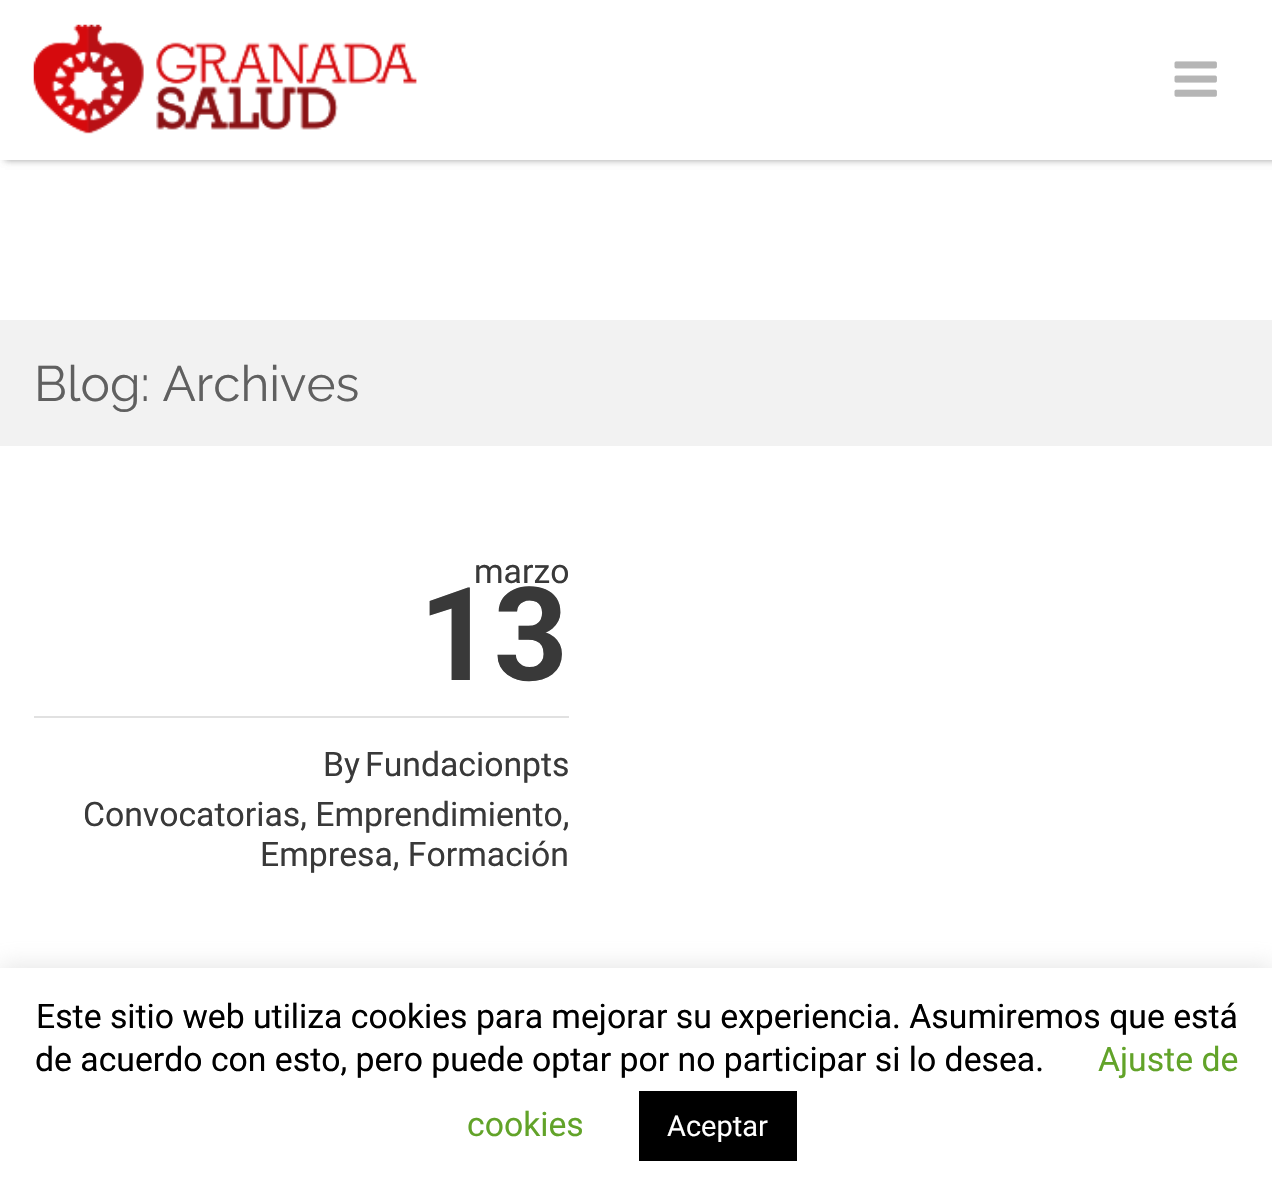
void draw(SkCanvas* canvas) {
	SkPaint paint;
	paint.setAntiAlias(true);
	auto svgPath = [&](const char* data, bool evenOdd = false) {
		SkPath result = *SkParsePath::FromSVGString(data);
		if (evenOdd) result.setFillType(SkPathFillType::kEvenOdd);
		return result;
	};
	canvas->clear(0xffffffff);
	paint.setColor(0x33000000);
	paint.setMaskFilter(SkMaskFilter::MakeBlur(kNormal_SkBlurStyle, 3.5));
	canvas->drawRect(SkRect::MakeXYWH(5, 0, 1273, 160), paint);
	paint.setMaskFilter(nullptr);
	paint.setColor(0xffffffff);
	canvas->drawRect(SkRect::MakeXYWH(0, 0, 1272, 160), paint);
	canvas->save();
	canvas->clipPath(svgPath("M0 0H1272V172H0ZM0 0H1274V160H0Z", true), true);
	paint.setColor(0x33000000);
	paint.setMaskFilter(SkMaskFilter::MakeBlur(kNormal_SkBlurStyle, 3.5));
	canvas->drawRect(SkRect::MakeXYWH(5, 0, 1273, 160), paint);
	paint.setMaskFilter(nullptr);
	canvas->restore();
	canvas->drawImageRect(SkImages::DeferredFromEncodedData(SkData::MakeFromFileName("img1.png")), SkRect::MakeXYWH(33, 24, 384, 110), SkSamplingOptions());
	canvas->drawImageRect(SkImages::DeferredFromEncodedData(SkData::MakeFromFileName("img2.png")), SkRect::MakeXYWH(1174, 61, 43, 36), SkSamplingOptions());
	paint.setColor(0xfff2f2f2);
	canvas->drawRect(SkRect::MakeXYWH(0, 320, 1272, 126), paint);
	SkFont f1(fontMgr->matchFamilyStyle("Raleway", SkFontStyle::Normal()), 49.5);
	f1.setSubpixel(true);
	paint.setColor(0xff606060);
	canvas->drawString("Blog: Archives", 34, 401, f1, paint);
	paint.setColor(0xffe1e1e1);
	canvas->drawRect(SkRect::MakeXYWH(34, 716, 535, 2), paint);
	SkFont f2(fontMgr->matchFamilyStyle("Roboto", SkFontStyle::Normal()), 33.75);
	f2.setSubpixel(true);
	paint.setColor(0xff393939);
	canvas->drawString("marzo", 474, 583, f2, paint);
	SkFont f3(fontMgr->matchFamilyStyle("Roboto", SkFontStyle::Bold()), 130);
	f3.setSubpixel(true);
	canvas->drawString("13", 419, 680, f3, paint);
	canvas->drawString("By", 323, 776, f2, paint);
	canvas->drawString("Fundacionpts", 365, 776, f2, paint);
	canvas->drawString("Convocatorias, Emprendimiento,", 83, 826, f2, paint);
	canvas->drawString("Empresa, Formación", 260, 866, f2, paint);
	paint.setColor(0x4dacabab);
	paint.setMaskFilter(SkMaskFilter::MakeBlur(kNormal_SkBlurStyle, 11));
	canvas->drawRect(SkRect::MakeXYWH(0, 965, 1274, 232), paint);
	paint.setMaskFilter(nullptr);
	paint.setColor(0xffffffff);
	canvas->drawRect(SkRect::MakeXYWH(0, 968, 1272, 230), paint);
	paint.setColor(0xff000000);
	canvas->drawString("Este sitio web utiliza cookies para mejorar su experiencia. Asumiremos que está", 36, 1028, f2, paint);
	canvas->drawString("de acuerdo con esto, pero puede optar por no participar si lo desea.", 35, 1071, f2, paint);
	paint.setColor(0xff62a329);
	canvas->drawString("Ajuste de", 1098, 1071, f2, paint);
	canvas->drawString("cookies", 467, 1136, f2, paint);
	paint.setColor(0xff000000);
	canvas->drawRect(SkRect::MakeXYWH(639, 1091, 158, 70), paint);
	SkFont f4(fontMgr->matchFamilyStyle("Roboto", SkFontStyle::Normal()), 29);
	f4.setSubpixel(true);
	paint.setColor(0xffffffff);
	canvas->drawString("Aceptar", 667, 1136, f4, paint);
}
